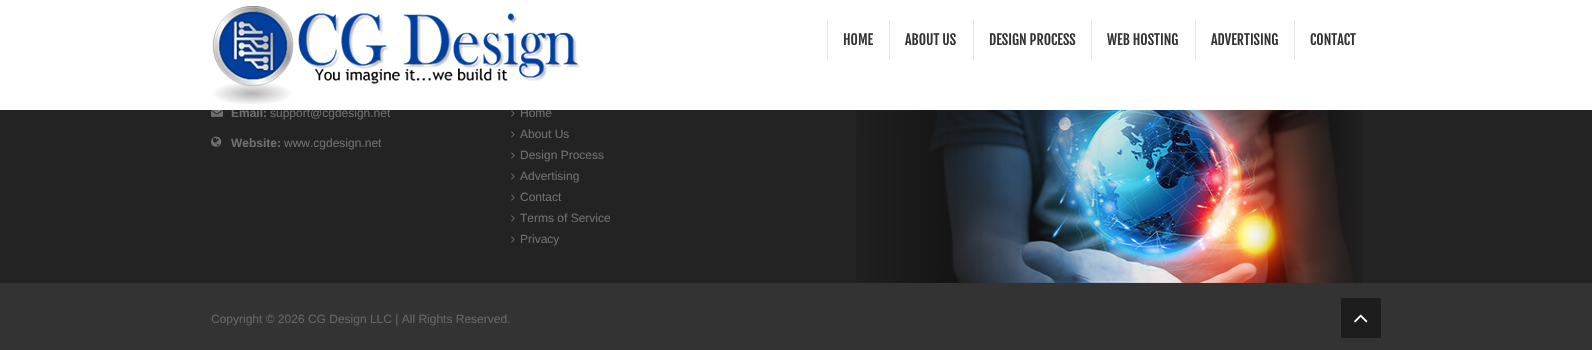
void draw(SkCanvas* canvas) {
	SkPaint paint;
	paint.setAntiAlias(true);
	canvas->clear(0xff232323);
	SkFont f1(fontMgr->matchFamilyStyle("Liberation Sans", SkFontStyle::Bold()), 12);
	f1.setSubpixel(true);
	paint.setColor(0xff6f6f6f);
	canvas->drawString("Email:", 231, 117, f1, paint);
	SkFont f2(fontMgr->matchFamilyStyle("Liberation Sans", SkFontStyle::Normal()), 12);
	f2.setSubpixel(true);
	canvas->drawString("support@cgdesign.net", 270, 117, f2, paint);
	canvas->drawString("Home", 520, 117, f2, paint);
	paint.setColor(0xffffffff);
	canvas->drawRect(SkRect::MakeXYWH(0, 0, 1592, 110), paint);
	canvas->drawImageRect(SkImages::DeferredFromEncodedData(SkData::MakeFromFileName("img1.png")), SkRect::MakeXYWH(212, 6, 368, 98), SkSamplingOptions());
	paint.setColor(0xffe5e5e5);
	canvas->drawRect(SkRect::MakeXYWH(827, 20, 1, 40), paint);
	SkFont f3(fontMgr->matchFamilyStyle("Fjalla One", SkFontStyle::Normal()), 14);
	f3.setSubpixel(true);
	paint.setColor(0xff333333);
	canvas->drawString("HOME", 843, 45, f3, paint);
	paint.setColor(0xffe5e5e5);
	canvas->drawRect(SkRect::MakeXYWH(889, 20, 1, 40), paint);
	paint.setColor(0xff333333);
	canvas->drawString("ABOUT US", 905, 45, f3, paint);
	paint.setColor(0xffe5e5e5);
	canvas->drawRect(SkRect::MakeXYWH(973, 20, 1, 40), paint);
	paint.setColor(0xff333333);
	canvas->drawString("DESIGN PROCESS", 989, 45, f3, paint);
	paint.setColor(0xffe5e5e5);
	canvas->drawRect(SkRect::MakeXYWH(1091, 20, 1, 40), paint);
	paint.setColor(0xff333333);
	canvas->drawString("WEB HOSTING", 1107, 45, f3, paint);
	paint.setColor(0xffe5e5e5);
	canvas->drawRect(SkRect::MakeXYWH(1195, 20, 1, 40), paint);
	paint.setColor(0xff333333);
	canvas->drawString("ADVERTISING", 1211, 45, f3, paint);
	paint.setColor(0xffe5e5e5);
	canvas->drawRect(SkRect::MakeXYWH(1294, 20, 1, 40), paint);
	paint.setColor(0xff333333);
	canvas->drawString("CONTACT", 1310, 45, f3, paint);
	canvas->drawImageRect(SkImages::DeferredFromEncodedData(SkData::MakeFromFileName("img2.png")), SkRect::MakeXYWH(211, 110, 12, 7), SkSamplingOptions());
	canvas->drawImageRect(SkImages::DeferredFromEncodedData(SkData::MakeFromFileName("img3.png")), SkRect::MakeXYWH(211, 136, 11, 11), SkSamplingOptions());
	paint.setColor(0xff6f6f6f);
	canvas->drawString("Website:", 231, 147, f1, paint);
	canvas->drawString("www.cgdesign.net", 284, 147, f2, paint);
	canvas->drawImageRect(SkImages::DeferredFromEncodedData(SkData::MakeFromFileName("img4.png")), SkRect::MakeXYWH(511, 110, 4, 7), SkSamplingOptions());
	canvas->drawImageRect(SkImages::DeferredFromEncodedData(SkData::MakeFromFileName("img4.png")), SkRect::MakeXYWH(511, 131, 4, 7), SkSamplingOptions());
	canvas->drawString("About Us", 520, 138, f2, paint);
	canvas->drawImageRect(SkImages::DeferredFromEncodedData(SkData::MakeFromFileName("img4.png")), SkRect::MakeXYWH(511, 152, 4, 7), SkSamplingOptions());
	canvas->drawString("Design Process", 520, 159, f2, paint);
	canvas->drawImageRect(SkImages::DeferredFromEncodedData(SkData::MakeFromFileName("img4.png")), SkRect::MakeXYWH(511, 173, 4, 7), SkSamplingOptions());
	canvas->drawString("Advertising", 520, 180, f2, paint);
	canvas->drawImageRect(SkImages::DeferredFromEncodedData(SkData::MakeFromFileName("img4.png")), SkRect::MakeXYWH(511, 194, 4, 7), SkSamplingOptions());
	canvas->drawString("Contact", 520, 201, f2, paint);
	canvas->drawImageRect(SkImages::DeferredFromEncodedData(SkData::MakeFromFileName("img4.png")), SkRect::MakeXYWH(511, 215, 4, 7), SkSamplingOptions());
	canvas->drawString("Terms of Service", 520, 222, f2, paint);
	canvas->drawImageRect(SkImages::DeferredFromEncodedData(SkData::MakeFromFileName("img4.png")), SkRect::MakeXYWH(511, 236, 4, 7), SkSamplingOptions());
	canvas->drawString("Privacy", 520, 243, f2, paint);
	canvas->drawImageRect(SkImages::DeferredFromEncodedData(SkData::MakeFromFileName("img5.png")), SkRect::MakeXYWH(856, 110, 506, 173), SkSamplingOptions());
	paint.setColor(0xff333333);
	canvas->drawRect(SkRect::MakeXYWH(0, 283, 1592, 67), paint);
	paint.setColor(0xff666666);
	canvas->drawString("Copyright © 2026 CG Design LLC | All Rights Reserved.", 211, 323, f2, paint);
	paint.setColor(0xff1d1d1d);
	canvas->drawRect(SkRect::MakeXYWH(1341, 298, 40, 40), paint);
	canvas->drawImageRect(SkImages::DeferredFromEncodedData(SkData::MakeFromFileName("img6.png")), SkRect::MakeXYWH(1354, 314, 14, 9), SkSamplingOptions());
}
